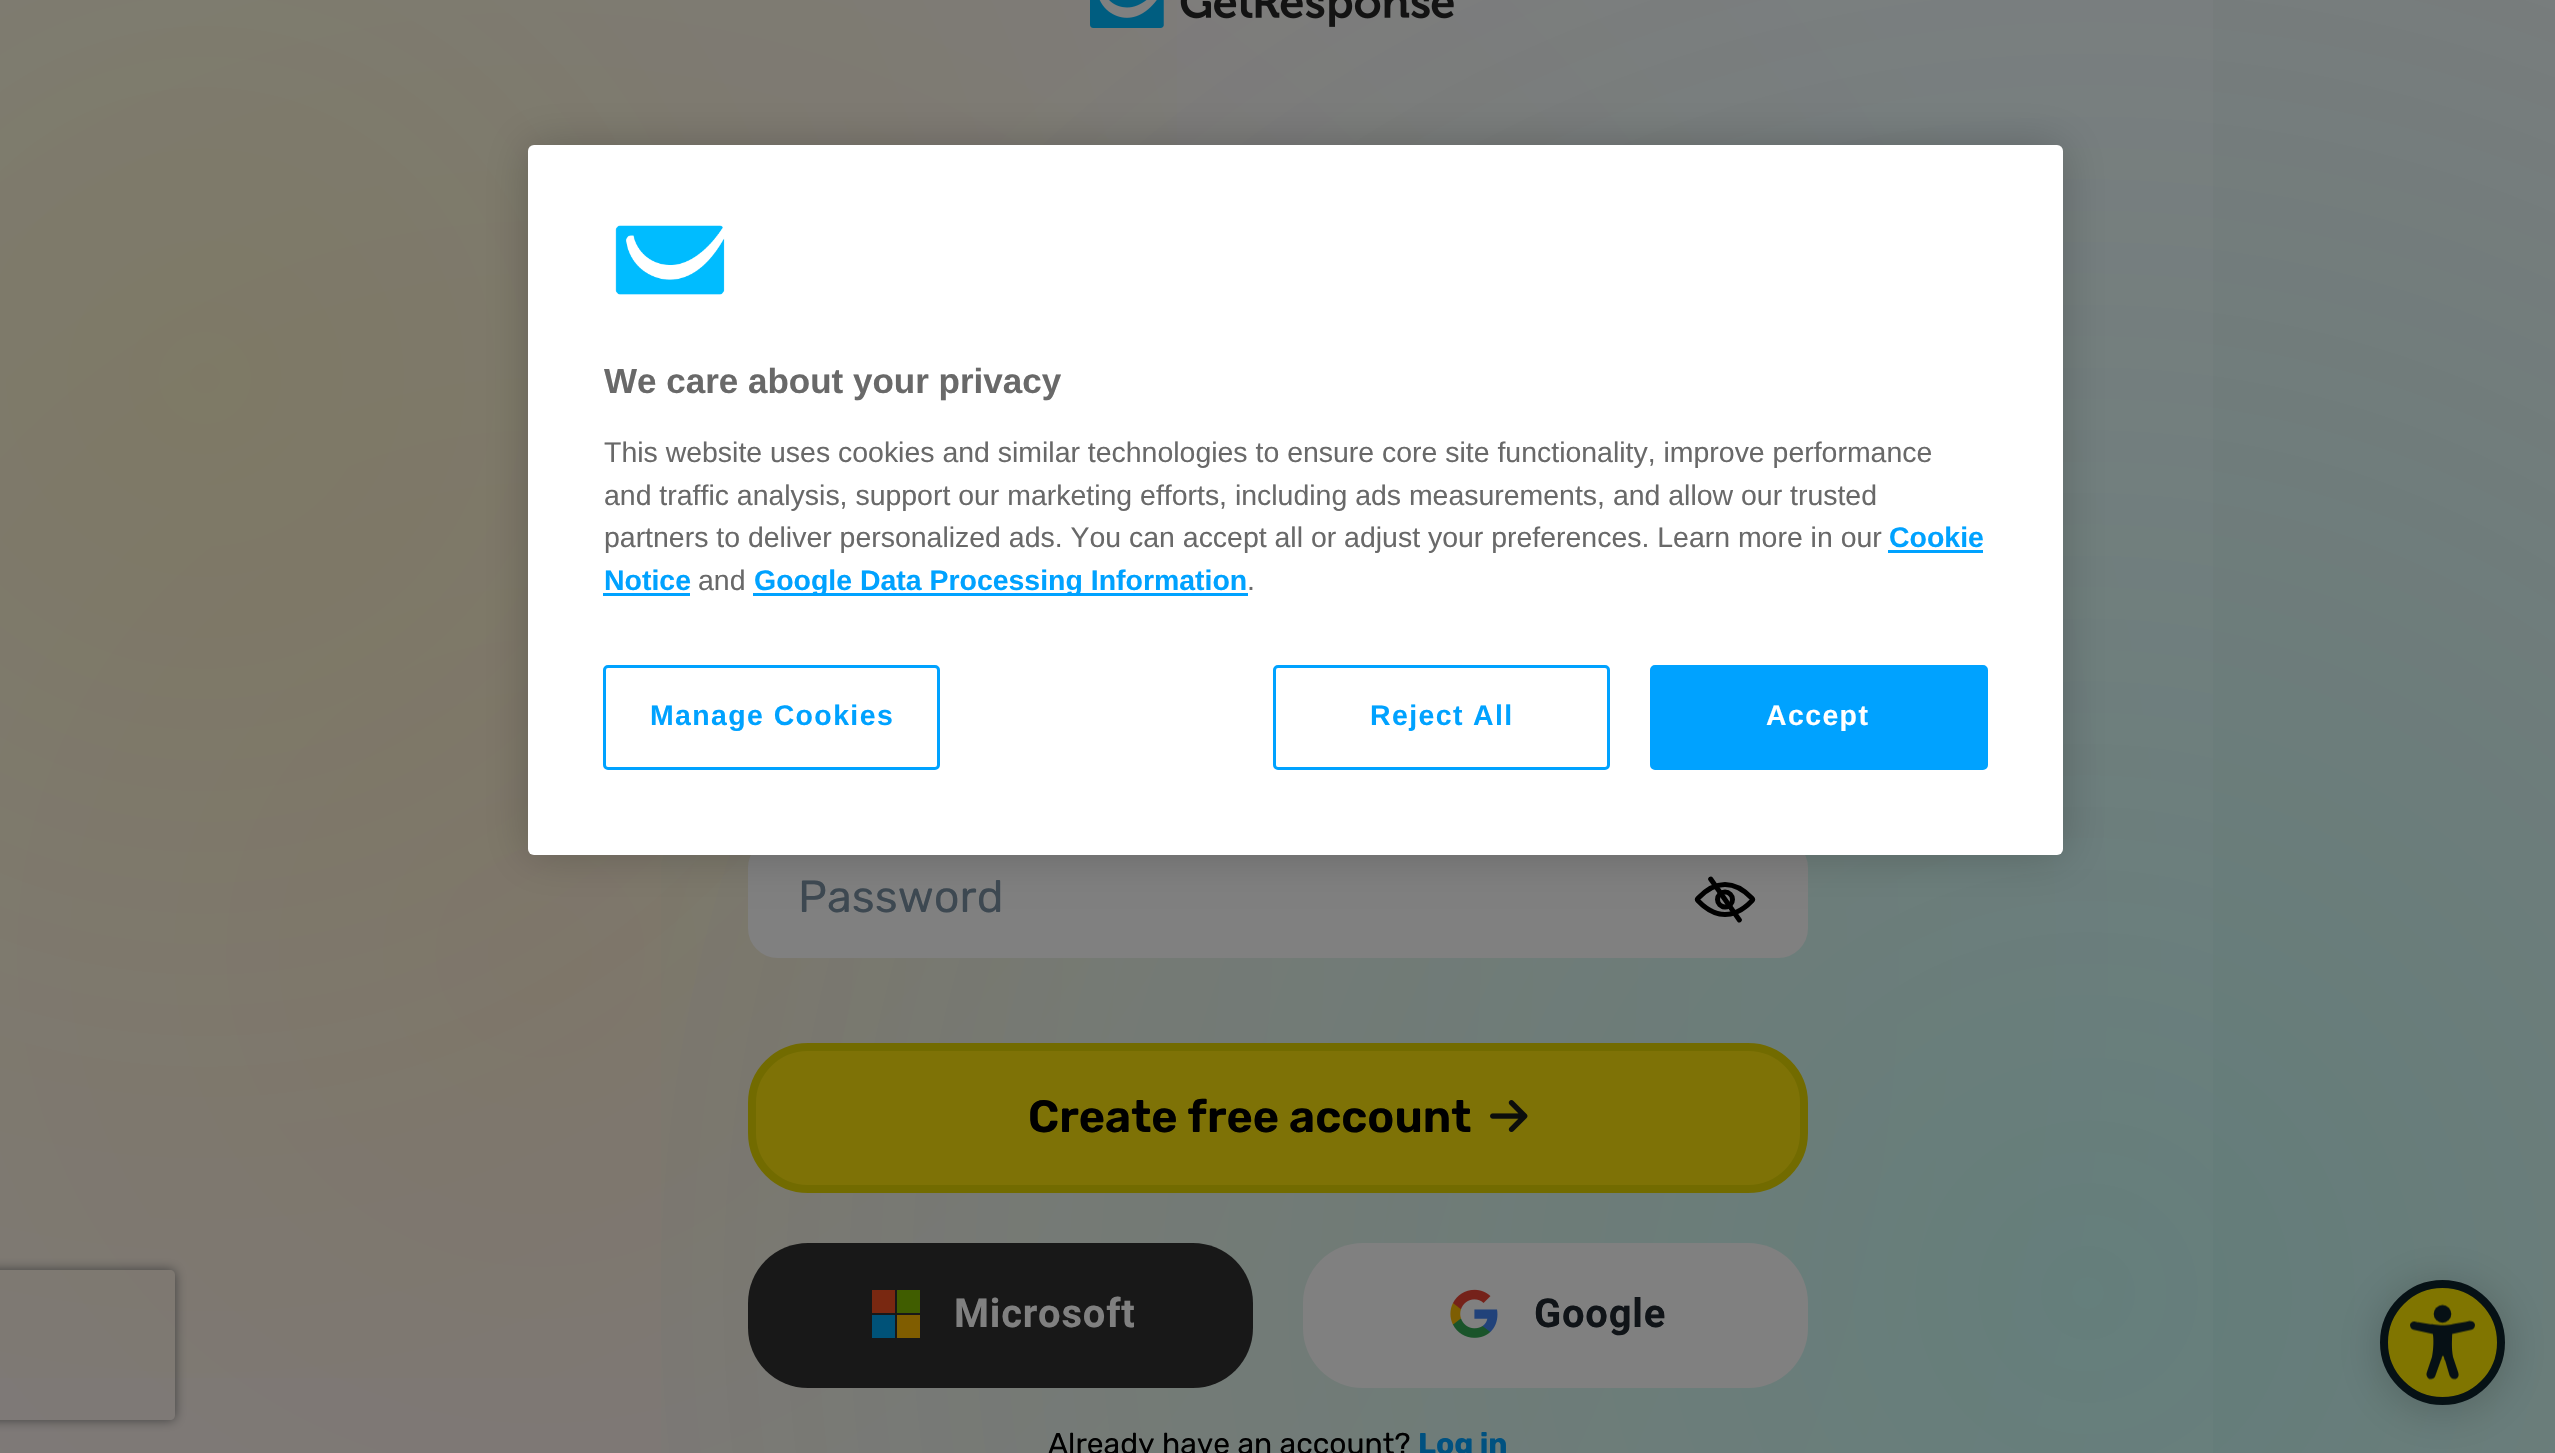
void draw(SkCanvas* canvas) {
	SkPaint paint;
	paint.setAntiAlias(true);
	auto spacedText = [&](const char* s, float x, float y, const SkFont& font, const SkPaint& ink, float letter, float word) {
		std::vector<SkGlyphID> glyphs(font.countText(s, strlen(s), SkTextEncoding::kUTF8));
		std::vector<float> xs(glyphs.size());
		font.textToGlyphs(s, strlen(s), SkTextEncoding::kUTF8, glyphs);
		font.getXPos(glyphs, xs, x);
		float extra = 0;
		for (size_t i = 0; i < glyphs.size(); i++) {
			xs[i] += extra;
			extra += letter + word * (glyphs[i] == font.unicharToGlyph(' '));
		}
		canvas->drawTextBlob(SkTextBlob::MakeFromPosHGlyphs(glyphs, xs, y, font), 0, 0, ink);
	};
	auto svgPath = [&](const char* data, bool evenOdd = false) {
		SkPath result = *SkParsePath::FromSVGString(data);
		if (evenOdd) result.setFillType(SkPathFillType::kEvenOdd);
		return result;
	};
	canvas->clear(0xff7b7c7d);
	{
		const SkColor colors[] = {0xff7e7670, 0xff7e7e80};
		const float stops[] = {0, 1};
		paint.setShader(SkGradientShader::MakeRadial({540, 953}, 1673, colors, stops, 2, SkTileMode::kClamp));
		paint.setAlpha(255);
	}
	canvas->drawRect(SkRect::MakeXYWH(0, 0, 2213, 1453), paint);
	{
		const SkColor colors[] = {0x267d7b08, 0x007d7b08};
		const float stops[] = {0, 1};
		paint.setShader(SkGradientShader::MakeRadial({205, 378}, 1163, colors, stops, 2, SkTileMode::kClamp));
		paint.setAlpha(255);
	}
	canvas->drawRect(SkRect::MakeXYWH(0, 0, 1177, 1378), paint);
	{
		const SkColor colors[] = {0x3300806c, 0x0000806c};
		const float stops[] = {0, 1};
		paint.setShader(SkGradientShader::MakeRadial({2088, 1293}, 1600, colors, stops, 2, SkTileMode::kClamp));
		paint.setAlpha(255);
	}
	canvas->drawRect(SkRect::MakeXYWH(661, 0, 1894, 1453), paint);
	paint.setShader(nullptr);
	paint.setColor(0xff808080);
	canvas->drawRoundRect(SkRect::MakeXYWH(750.5, 840.5, 1055, 115), 27.5, 27.5, paint);
	paint.setStroke(true);
	paint.setStrokeWidth(5);
	canvas->drawRoundRect(SkRect::MakeXYWH(750.5, 840.5, 1055, 115), 27.5, 27.5, paint);
	canvas->drawImageRect(SkImages::DeferredFromEncodedData(SkData::MakeFromFileName("img3.png")), SkRect::MakeXYWH(1694, 876, 62, 47), SkSamplingOptions());
	paint.setStroke(false);
	paint.setColor(0x33000000);
	paint.setMaskFilter(SkMaskFilter::MakeBlur(kNormal_SkBlurStyle, 22.5));
	canvas->drawRoundRect(SkRect::MakeXYWH(528, 145, 1535, 710), 6, 6, paint);
	paint.setMaskFilter(nullptr);
	paint.setColor(0xffffffff);
	canvas->drawRoundRect(SkRect::MakeXYWH(528, 145, 1535, 710), 6, 6, paint);
	canvas->drawImageRect(SkImages::DeferredFromEncodedData(SkData::MakeFromFileName("img1.png")), SkRect::MakeXYWH(615, 225, 110, 70), SkSamplingOptions());
	SkFont f1(fontMgr->matchFamilyStyle("Liberation Sans", SkFontStyle::Bold()), 35);
	f1.setSubpixel(true);
	paint.setColor(0xff696969);
	canvas->drawString("We care about your privacy", 604, 393, f1, paint);
	SkFont f2(fontMgr->matchFamilyStyle("Liberation Sans", SkFontStyle::Normal()), 28.45);
	f2.setSubpixel(true);
	canvas->drawString("This website uses cookies and similar technologies to ensure core site functionality, improve performance", 604, 462, f2, paint);
	canvas->drawString("and traffic analysis, support our marketing efforts, including ads measurements, and allow our trusted", 604, 505, f2, paint);
	canvas->drawString("partners to deliver personalized ads. You can accept all or adjust your preferences. Learn more in our", 604, 547, f2, paint);
	SkFont f3(fontMgr->matchFamilyStyle("Liberation Sans", SkFontStyle::Bold()), 28.45);
	f3.setSubpixel(true);
	paint.setColor(0xff00a2ff);
	canvas->drawString("Cookie", 1889, 547, f3, paint);
	canvas->drawRect(SkRect::MakeXYWH(1888, 550, 95, 3), paint);
	canvas->drawString("Notice", 604, 590, f3, paint);
	canvas->drawRect(SkRect::MakeXYWH(603, 593, 87, 3), paint);
	paint.setColor(0xff696969);
	canvas->drawString("and", 698, 590, f2, paint);
	paint.setColor(0xff00a2ff);
	canvas->drawRect(SkRect::MakeXYWH(753, 593, 495, 3), paint);
	canvas->drawString("Google Data Processing Information", 754, 590, f3, paint);
	paint.setColor(0xff696969);
	canvas->drawString(".", 1247, 590, f2, paint);
	paint.setStroke(true);
	paint.setStrokeWidth(3);
	paint.setColor(0xff00a2ff);
	canvas->drawRoundRect(SkRect::MakeXYWH(604.5, 666.5, 334, 102), 3.5, 3.5, paint);
	paint.setStroke(false);
	spacedText("Manage Cookies", 650, 725, f3, paint, 1.4, 0);
	paint.setStroke(true);
	canvas->drawRoundRect(SkRect::MakeXYWH(1274.5, 666.5, 334, 102), 3.5, 3.5, paint);
	paint.setStroke(false);
	spacedText("Reject All", 1370, 725, f3, paint, 1.4, 0);
	canvas->drawRoundRect(SkRect::MakeXYWH(1651.5, 666.5, 335, 102), 3.5, 3.5, paint);
	paint.setStroke(true);
	canvas->drawRoundRect(SkRect::MakeXYWH(1651.5, 666.5, 335, 102), 3.5, 3.5, paint);
	paint.setStroke(false);
	paint.setColor(0xffffffff);
	spacedText("Accept", 1766, 725, f3, paint, 1.4, 0);
	canvas->drawImageRect(SkImages::DeferredFromEncodedData(SkData::MakeFromFileName("img2.png")), SkRect::MakeXYWH(1090, 0, 364, 28), SkSamplingOptions());
	SkFont f4(fontMgr->matchFamilyStyle("Rubik", SkFontStyle::Normal()), 45);
	f4.setSubpixel(true);
	paint.setColor(0xff3d4851);
	canvas->drawString("Password", 798, 912, f4, paint);
	paint.setColor(0xff7e7206);
	canvas->drawRoundRect(SkRect::MakeXYWH(752, 1047, 1052, 142), 56, 56, paint);
	paint.setStroke(true);
	paint.setStrokeWidth(8);
	paint.setColor(0xff726b00);
	canvas->drawRoundRect(SkRect::MakeXYWH(752, 1047, 1052, 142), 56, 56, paint);
	SkFont f5(fontMgr->matchFamilyStyle("Rubik", SkFontStyle(600, SkFontStyle::kNormal_Width, SkFontStyle::kUpright_Slant)), 45);
	f5.setSubpixel(true);
	paint.setStroke(false);
	paint.setColor(0xff000000);
	canvas->drawString("Create free account", 1028, 1132, f5, paint);
	canvas->drawImageRect(SkImages::DeferredFromEncodedData(SkData::MakeFromFileName("img4.png")), SkRect::MakeXYWH(1490, 1100, 38, 32), SkSamplingOptions());
	canvas->save();
	canvas->clipPath(svgPath("M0 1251H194V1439H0ZM-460 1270H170C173 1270 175 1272 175 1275V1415C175 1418 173 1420 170 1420H-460C-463 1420-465 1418-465 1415V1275C-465 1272-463 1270-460 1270Z", true), true);
	paint.setColor(0xff404040);
	paint.setMaskFilter(SkMaskFilter::MakeBlur(kNormal_SkBlurStyle, 6));
	canvas->drawRoundRect(SkRect::MakeXYWH(-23, 1270, 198, 150), 5, 5, paint);
	paint.setMaskFilter(nullptr);
	canvas->restore();
	paint.setColor(0xff181818);
	canvas->drawRoundRect(SkRect::MakeXYWH(748, 1243, 505, 145), 60, 60, paint);
	paint.setColor(0xff792811);
	canvas->drawRect(SkRect::MakeXYWH(872, 1290, 23, 23), paint);
	paint.setColor(0xff005278);
	canvas->drawRect(SkRect::MakeXYWH(872, 1315, 23, 23), paint);
	paint.setColor(0xff405d00);
	canvas->drawRect(SkRect::MakeXYWH(897, 1290, 23, 23), paint);
	paint.setColor(0xff805d00);
	canvas->drawRect(SkRect::MakeXYWH(897, 1315, 23, 23), paint);
	SkFont f6(fontMgr->matchFamilyStyle("Roboto", SkFontStyle::Bold()), 40);
	f6.setSubpixel(true);
	paint.setColor(0xff808080);
	spacedText("Microsoft", 954, 1327, f6, paint, 0.75, 0);
	canvas->drawRoundRect(SkRect::MakeXYWH(1303, 1243, 505, 145), 60, 60, paint);
	canvas->drawImageRect(SkImages::DeferredFromEncodedData(SkData::MakeFromFileName("img5.png")), SkRect::MakeXYWH(1450, 1289, 48, 49), SkSamplingOptions());
	paint.setColor(0xff101418);
	spacedText("Google", 1534, 1327, f6, paint, 0.75, 0);
	SkFont f7(fontMgr->matchFamilyStyle("Rubik", SkFontStyle::Normal()), 30);
	f7.setSubpixel(true);
	paint.setColor(0xff000000);
	canvas->drawString("Already have an account?", 1048, 1454, f7, paint);
	SkFont f8(fontMgr->matchFamilyStyle("Rubik", SkFontStyle::Bold()), 30);
	f8.setSubpixel(true);
	paint.setColor(0xff005180);
	canvas->drawString("Log in", 1418, 1454, f8, paint);
	paint.setColor(0x33000000);
	paint.setMaskFilter(SkMaskFilter::MakeBlur(kNormal_SkBlurStyle, 22.5));
	canvas->drawRoundRect(SkRect::MakeXYWH(2380, 1285, 125, 125), 62.5, 62.5, paint);
	paint.setMaskFilter(nullptr);
	paint.setColor(0xff807500);
	canvas->drawCircle(2442.5, 1342.5, 58.5, paint);
	paint.setStroke(true);
	paint.setColor(0xff061115);
	canvas->drawCircle(2442.5, 1342.5, 58.5, paint);
	canvas->drawImageRect(SkImages::DeferredFromEncodedData(SkData::MakeFromFileName("img6.png")), SkRect::MakeXYWH(2410, 1304, 65, 76), SkSamplingOptions());
}
